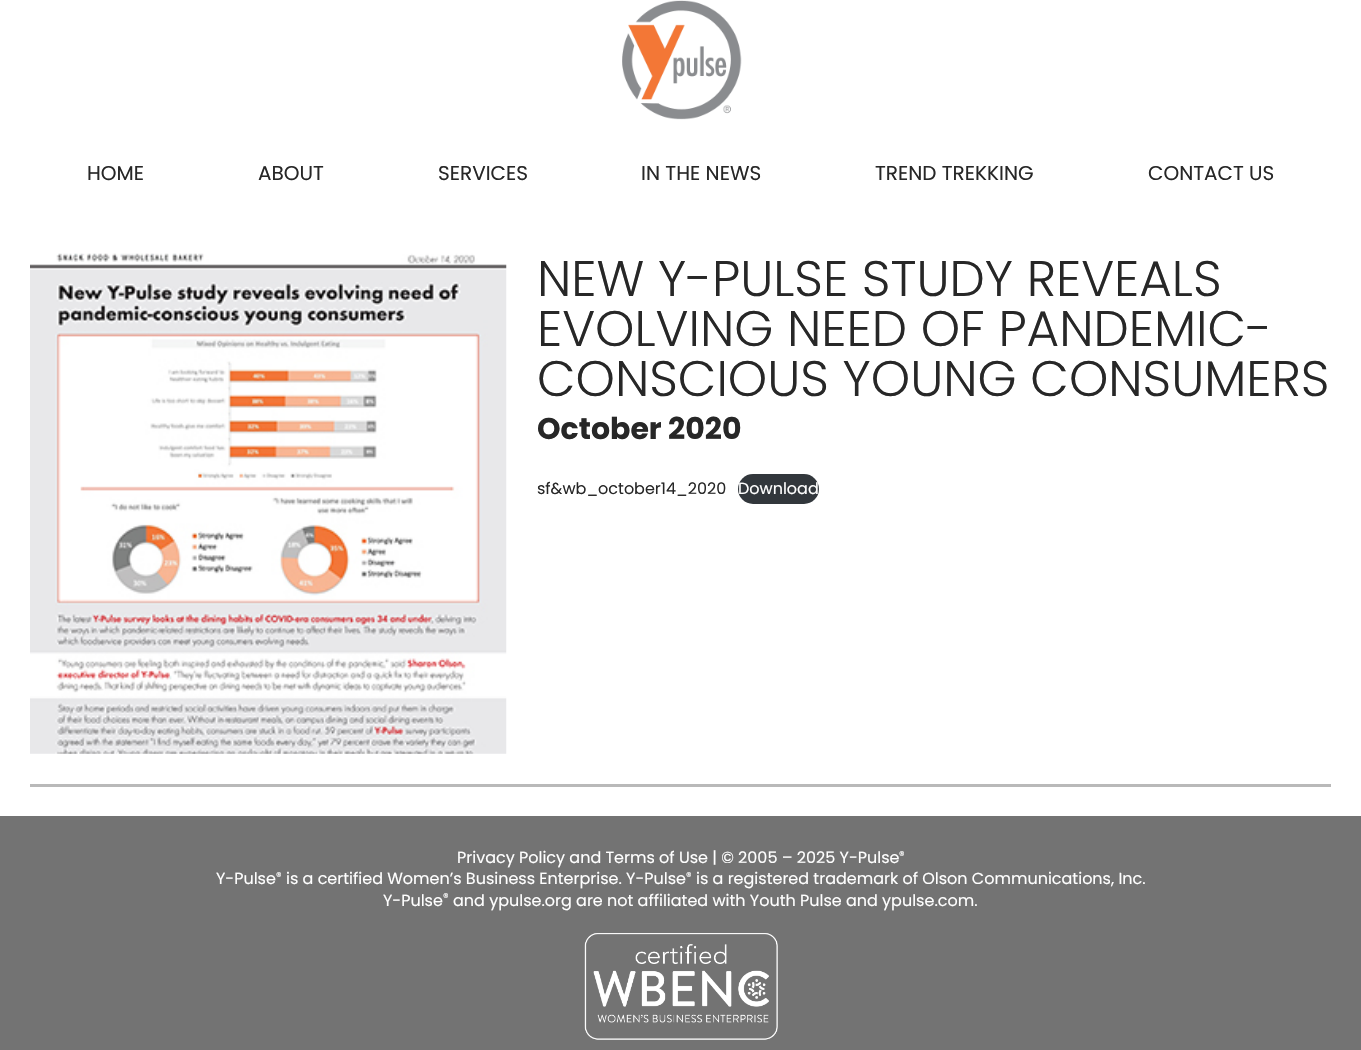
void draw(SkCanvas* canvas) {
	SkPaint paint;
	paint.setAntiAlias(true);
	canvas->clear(0xffffffff);
	canvas->drawImageRect(SkImages::DeferredFromEncodedData(SkData::MakeFromFileName("img1.png")), SkRect::MakeXYWH(622, 0, 120, 120), SkSamplingOptions());
	SkFont f1(fontMgr->matchFamilyStyle("Poppins", SkFontStyle::Normal()), 20);
	f1.setSubpixel(true);
	paint.setColor(0xff272727);
	canvas->drawString("HOME", 87, 180, f1, paint);
	canvas->drawString("ABOUT", 258, 180, f1, paint);
	canvas->drawString("SERVICES", 438, 180, f1, paint);
	canvas->drawString("IN THE NEWS", 641, 180, f1, paint);
	canvas->drawString("TREND TREKKING", 875, 180, f1, paint);
	canvas->drawString("CONTACT US", 1148, 180, f1, paint);
	paint.setColor(0xffb9b9b9);
	canvas->drawRect(SkRect::MakeXYWH(30, 784, 1301, 3), paint);
	canvas->drawImageRect(SkImages::DeferredFromEncodedData(SkData::MakeFromFileName("img2.png")), SkRect::MakeXYWH(30, 253, 477, 501), SkSamplingOptions());
	SkFont f2(fontMgr->matchFamilyStyle("Poppins", SkFontStyle(300, SkFontStyle::kNormal_Width, SkFontStyle::kUpright_Slant)), 50);
	f2.setSubpixel(true);
	paint.setColor(0xff272727);
	canvas->drawString("NEW Y-PULSE STUDY REVEALS", 537, 296, f2, paint);
	canvas->drawString("EVOLVING NEED OF PANDEMIC-", 537, 346, f2, paint);
	canvas->drawString("CONSCIOUS YOUNG CONSUMERS", 537, 396, f2, paint);
	SkFont f3(fontMgr->matchFamilyStyle("Poppins", SkFontStyle::Bold()), 30);
	f3.setSubpixel(true);
	canvas->drawString("October 2020", 537, 439, f3, paint);
	SkFont f4(fontMgr->matchFamilyStyle("Poppins", SkFontStyle::Normal()), 16);
	f4.setSubpixel(true);
	canvas->drawString("sf&wb_october14_2020", 537, 494, f4, paint);
	paint.setColor(0xff32373c);
	canvas->drawRoundRect(SkRect::MakeXYWH(738, 474, 81, 30), 15, 15, paint);
	paint.setColor(0xffffffff);
	canvas->drawString("Download", 738, 494, f4, paint);
	paint.setColor(0xff737373);
	canvas->drawRect(SkRect::MakeXYWH(0, 816, 1361, 234), paint);
	paint.setColor(0xffffffff);
	canvas->drawString("Privacy Policy and Terms of Use | © 2005 – 2025 Y-Pulse", 457, 863, f4, paint);
	SkFont f5(fontMgr->matchFamilyStyle("Poppins", SkFontStyle::Normal()), 11);
	f5.setSubpixel(true);
	canvas->drawString("®", 899, 859, f5, paint);
	canvas->drawString("Y-Pulse", 216, 884, f4, paint);
	canvas->drawString("®", 276, 880, f5, paint);
	canvas->drawString("is a certified Women’s Business Enterprise. Y-Pulse", 286, 884, f4, paint);
	canvas->drawString("®", 686, 880, f5, paint);
	canvas->drawString("is a registered trademark of Olson Communications, Inc.", 696, 884, f4, paint);
	canvas->drawString("Y-Pulse", 383, 906, f4, paint);
	canvas->drawString("®", 443, 901, f5, paint);
	canvas->drawString("and ypulse.org are not affiliated with Youth Pulse and ypulse.com.", 453, 906, f4, paint);
	canvas->drawImageRect(SkImages::DeferredFromEncodedData(SkData::MakeFromFileName("img3.png")), SkRect::MakeXYWH(584, 933, 194, 107), SkSamplingOptions());
}
